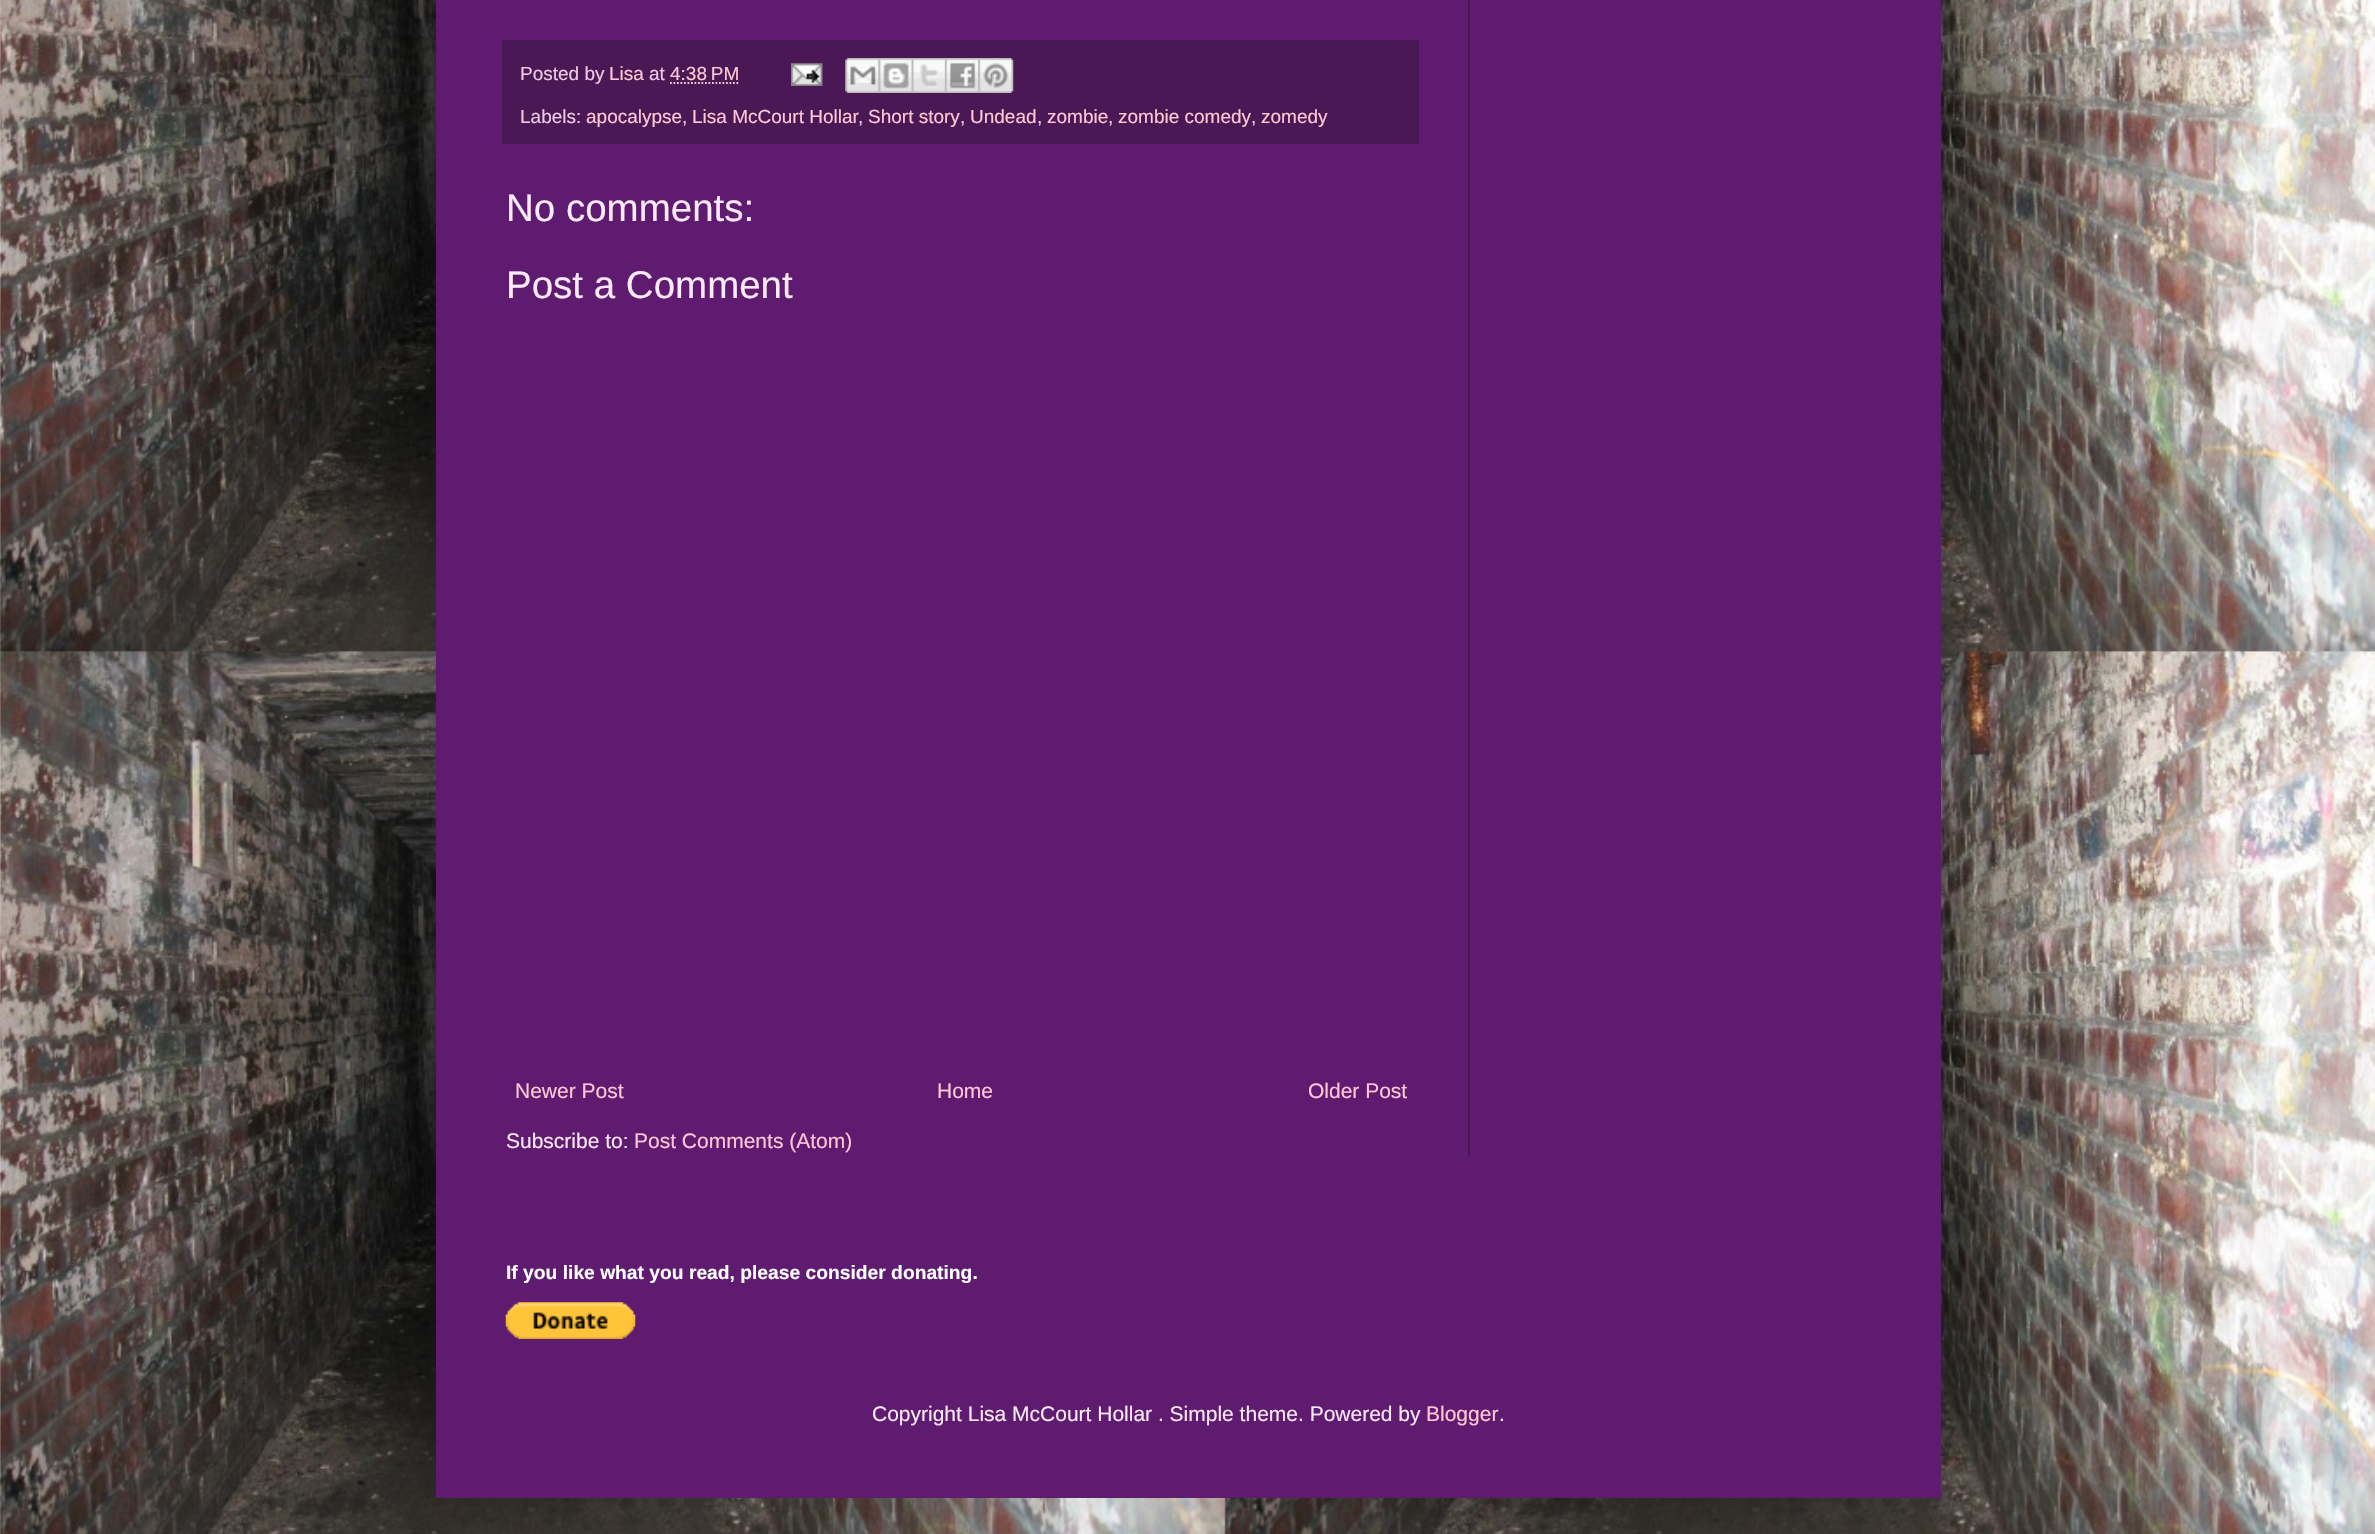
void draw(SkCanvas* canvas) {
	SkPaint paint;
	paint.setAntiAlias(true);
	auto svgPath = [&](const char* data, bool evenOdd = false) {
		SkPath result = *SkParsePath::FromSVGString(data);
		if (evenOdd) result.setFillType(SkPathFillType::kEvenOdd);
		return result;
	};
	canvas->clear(0xffffffff);
	canvas->drawImageRect(SkImages::DeferredFromEncodedData(SkData::MakeFromFileName("img1.png")), SkRect::MakeXYWH(0, 0, 2375, 1534), SkSamplingOptions());
	paint.setColor(0x26000000);
	paint.setMaskFilter(SkMaskFilter::MakeBlur(kNormal_SkBlurStyle, 35));
	canvas->drawRect(SkRect::MakeXYWH(436, -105, 1505, 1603), paint);
	paint.setMaskFilter(nullptr);
	paint.setColor(0xff5e1b6f);
	canvas->drawRect(SkRect::MakeXYWH(436, 0, 1505, 1498), paint);
	paint.setColor(0xff491855);
	canvas->drawRect(SkRect::MakeXYWH(502, 40, 917, 104), paint);
	SkFont f1(fontMgr->matchFamilyStyle("Liberation Sans", SkFontStyle::Normal()), 19);
	f1.setSubpixel(true);
	paint.setColor(0xffedc9e2);
	canvas->drawString("Posted by", 520, 80, f1, paint);
	paint.setColor(0xffffc8d3);
	canvas->drawString("Lisa", 609, 80, f1, paint);
	paint.setColor(0xffedc9e2);
	canvas->drawString("at", 649, 80, f1, paint);
	paint.setColor(0xffffc8d3);
	canvas->drawString("4:38 PM", 670, 80, f1, paint);
	paint.setStroke(true);
	paint.setStrokeWidth(1.8);
	paint.setPathEffect(SkDashPathEffect::Make({{1.75f, 1.75f}}, 0));
	canvas->drawPath(svgPath("M670 83H739"), paint);
	paint.setPathEffect(nullptr);
	canvas->drawImageRect(SkImages::DeferredFromEncodedData(SkData::MakeFromFileName("img2.png")), SkRect::MakeXYWH(791, 63, 32, 23), SkSamplingOptions());
	canvas->drawImageRect(SkImages::DeferredFromEncodedData(SkData::MakeFromFileName("img3.png")), SkRect::MakeXYWH(845, 58, 34, 35), SkSamplingOptions());
	canvas->drawImageRect(SkImages::DeferredFromEncodedData(SkData::MakeFromFileName("img4.png")), SkRect::MakeXYWH(878, 58, 34, 35), SkSamplingOptions());
	canvas->drawImageRect(SkImages::DeferredFromEncodedData(SkData::MakeFromFileName("img5.png")), SkRect::MakeXYWH(911, 58, 34, 35), SkSamplingOptions());
	canvas->drawImageRect(SkImages::DeferredFromEncodedData(SkData::MakeFromFileName("img6.png")), SkRect::MakeXYWH(945, 58, 34, 35), SkSamplingOptions());
	canvas->drawImageRect(SkImages::DeferredFromEncodedData(SkData::MakeFromFileName("img7.png")), SkRect::MakeXYWH(978, 58, 36, 35), SkSamplingOptions());
	paint.setStroke(false);
	paint.setColor(0xffedc9e2);
	canvas->drawString("Labels:", 520, 123, f1, paint);
	paint.setColor(0xffffc8d3);
	canvas->drawString("apocalypse", 586, 123, f1, paint);
	paint.setColor(0xffedc9e2);
	canvas->drawString(",", 682, 123, f1, paint);
	paint.setColor(0xffffc8d3);
	canvas->drawString("Lisa McCourt Hollar", 692, 123, f1, paint);
	paint.setColor(0xffedc9e2);
	canvas->drawString(",", 858, 123, f1, paint);
	paint.setColor(0xffffc8d3);
	canvas->drawString("Short story", 868, 123, f1, paint);
	paint.setColor(0xffedc9e2);
	canvas->drawString(",", 960, 123, f1, paint);
	paint.setColor(0xffffc8d3);
	canvas->drawString("Undead", 970, 123, f1, paint);
	paint.setColor(0xffedc9e2);
	canvas->drawString(",", 1037, 123, f1, paint);
	paint.setColor(0xffffc8d3);
	canvas->drawString("zombie", 1047, 123, f1, paint);
	paint.setColor(0xffedc9e2);
	canvas->drawString(",", 1108, 123, f1, paint);
	paint.setColor(0xffffc8d3);
	canvas->drawString("zombie comedy", 1118, 123, f1, paint);
	paint.setColor(0xffedc9e2);
	canvas->drawString(",", 1251, 123, f1, paint);
	paint.setColor(0xffffc8d3);
	canvas->drawString("zomedy", 1261, 123, f1, paint);
	SkFont f2(fontMgr->matchFamilyStyle("Liberation Sans", SkFontStyle::Normal()), 38.5);
	f2.setSubpixel(true);
	paint.setColor(0xffffeafa);
	canvas->drawString("No comments:", 506, 221, f2, paint);
	canvas->drawString("Post a Comment", 506, 298, f2, paint);
	SkFont f3(fontMgr->matchFamilyStyle("Liberation Sans", SkFontStyle::Normal()), 21);
	f3.setSubpixel(true);
	paint.setColor(0xffffc8d3);
	canvas->drawString("Newer Post", 515, 1098, f3, paint);
	canvas->drawString("Home", 937, 1098, f3, paint);
	canvas->drawString("Older Post", 1308, 1098, f3, paint);
	paint.setColor(0xffffeafa);
	canvas->drawString("Subscribe to:", 506, 1148, f3, paint);
	paint.setColor(0xffffc8d3);
	canvas->drawString("Post Comments (Atom)", 634, 1148, f3, paint);
	paint.setColor(0xff491855);
	canvas->drawRect(SkRect::MakeXYWH(1468, 0, 2, 1157), paint);
	SkFont f4(fontMgr->matchFamilyStyle("Liberation Sans", SkFontStyle::Bold()), 19.25);
	f4.setSubpixel(true);
	paint.setColor(0xffffffff);
	canvas->drawString("If you like what you read, please consider donating.", 506, 1279, f4, paint);
	canvas->drawImageRect(SkImages::DeferredFromEncodedData(SkData::MakeFromFileName("img8.png")), SkRect::MakeXYWH(505, 1302, 131, 37), SkSamplingOptions());
	paint.setColor(0xffffeafa);
	canvas->drawString("Copyright Lisa McCourt Hollar . Simple theme. Powered by", 872, 1421, f3, paint);
	paint.setColor(0xffffc8d3);
	canvas->drawString("Blogger", 1426, 1421, f3, paint);
	paint.setColor(0xffffeafa);
	canvas->drawString(".", 1499, 1421, f3, paint);
}
